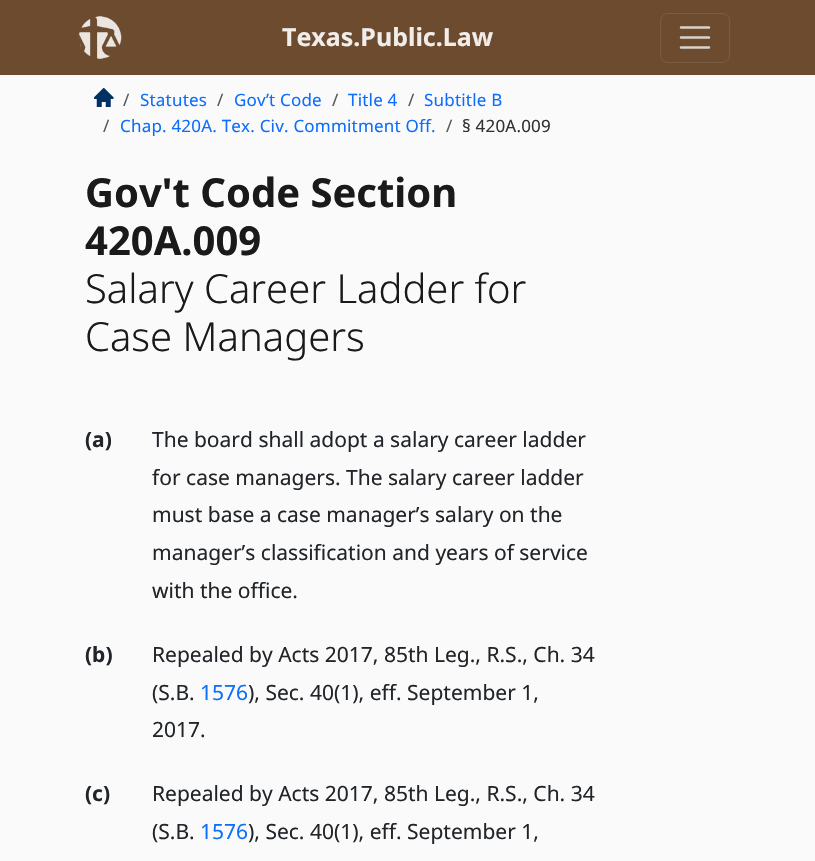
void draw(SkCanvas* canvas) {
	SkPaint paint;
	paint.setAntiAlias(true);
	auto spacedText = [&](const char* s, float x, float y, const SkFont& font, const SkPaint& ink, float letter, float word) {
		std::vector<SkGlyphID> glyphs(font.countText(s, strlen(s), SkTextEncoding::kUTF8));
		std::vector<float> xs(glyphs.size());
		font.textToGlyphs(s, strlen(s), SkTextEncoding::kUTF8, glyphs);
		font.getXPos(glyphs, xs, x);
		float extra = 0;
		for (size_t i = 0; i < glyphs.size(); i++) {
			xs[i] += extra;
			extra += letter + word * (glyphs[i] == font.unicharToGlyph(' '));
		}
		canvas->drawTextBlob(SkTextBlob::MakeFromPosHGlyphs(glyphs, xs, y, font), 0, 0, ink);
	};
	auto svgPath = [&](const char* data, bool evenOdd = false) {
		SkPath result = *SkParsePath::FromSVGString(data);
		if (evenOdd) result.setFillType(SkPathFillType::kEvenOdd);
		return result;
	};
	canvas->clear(0xfffafafa);
	paint.setColor(0xff6c4b2f);
	canvas->drawRect(SkRect::MakeXYWH(0, 0, 815, 75), paint);
	canvas->drawImageRect(SkImages::DeferredFromEncodedData(SkData::MakeFromFileName("img1.png")), SkRect::MakeXYWH(78, 16, 44, 43), SkSamplingOptions());
	SkFont f1(fontMgr->matchFamilyStyle("Noto Sans", SkFontStyle::Bold()), 25);
	f1.setSubpixel(true);
	paint.setColor(0xfff0edea);
	canvas->drawString("Texas.Public.Law", 282, 46, f1, paint);
	paint.setStroke(true);
	paint.setStrokeWidth(1);
	paint.setColor(0xff7b5d44);
	canvas->drawRoundRect(SkRect::MakeXYWH(660.5, 13.5, 69, 49), 7.5, 7.5, paint);
	paint.setStrokeWidth(2.5);
	paint.setStrokeCap(SkPaint::kRound_Cap);
	paint.setColor(0xffdad2cb);
	canvas->drawPath(svgPath("M681 27.5H709M681 37.5H709M681 47.5H709"), paint);
	canvas->drawImageRect(SkImages::DeferredFromEncodedData(SkData::MakeFromFileName("img2.png")), SkRect::MakeXYWH(94, 88, 20, 19), SkSamplingOptions());
	SkFont f2(fontMgr->matchFamilyStyle("Noto Sans", SkFontStyle::Normal()), 17);
	f2.setSubpixel(true);
	paint.setStroke(false);
	paint.setColor(0xff575a5d);
	spacedText("/", 123, 106, f2, paint, 0.2, 0);
	paint.setColor(0xff0d6efd);
	spacedText("Statutes", 140, 106, f2, paint, 0.2, 0);
	paint.setColor(0xff575a5d);
	spacedText("/", 217, 106, f2, paint, 0.2, 0);
	paint.setColor(0xff0d6efd);
	spacedText("Gov’t Code", 234, 106, f2, paint, 0.2, 0);
	paint.setColor(0xff575a5d);
	spacedText("/", 332, 106, f2, paint, 0.2, 0);
	paint.setColor(0xff0d6efd);
	spacedText("Title 4", 348, 106, f2, paint, 0.2, 0);
	paint.setColor(0xff575a5d);
	spacedText("/", 408, 106, f2, paint, 0.2, 0);
	paint.setColor(0xff0d6efd);
	spacedText("Subtitle B", 424, 106, f2, paint, 0.2, 0);
	paint.setColor(0xff575a5d);
	spacedText("/", 103, 132, f2, paint, 0.2, 0);
	paint.setColor(0xff0d6efd);
	spacedText("Chap. 420A. Tex. Civ. Commitment Off.", 120, 132, f2, paint, 0.2, 0);
	paint.setColor(0xff575a5d);
	spacedText("/", 446, 132, f2, paint, 0.2, 0);
	paint.setColor(0xff323232);
	spacedText("§ 420A.009", 462, 132, f2, paint, 0.2, 0);
	SkFont f3(fontMgr->matchFamilyStyle("Noto Sans", SkFontStyle::Bold()), 40);
	f3.setSubpixel(true);
	paint.setColor(0xff1a1a1a);
	canvas->drawString("Gov't Code Section", 85, 207, f3, paint);
	canvas->drawString("420A.009", 85, 255, f3, paint);
	SkFont f4(fontMgr->matchFamilyStyle("Noto Sans", SkFontStyle(300, SkFontStyle::kNormal_Width, SkFontStyle::kUpright_Slant)), 40);
	f4.setSubpixel(true);
	canvas->drawString("Salary Career Ladder for", 85, 303, f4, paint);
	canvas->drawString("Case Managers", 85, 351, f4, paint);
	SkFont f5(fontMgr->matchFamilyStyle("Noto Sans", SkFontStyle::Bold()), 21);
	f5.setSubpixel(true);
	paint.setColor(0xff212529);
	canvas->drawString("(a)", 85, 447, f5, paint);
	SkFont f6(fontMgr->matchFamilyStyle("Noto Sans", SkFontStyle::Normal()), 21);
	f6.setSubpixel(true);
	canvas->drawString("The board shall adopt a salary career ladder", 152, 447, f6, paint);
	canvas->drawString("for case managers. The salary career ladder", 152, 485, f6, paint);
	canvas->drawString("must base a case manager’s salary on the", 152, 522, f6, paint);
	canvas->drawString("manager’s classification and years of service", 152, 560, f6, paint);
	canvas->drawString("with the office.", 152, 598, f6, paint);
	canvas->drawString("(b)", 85, 662, f5, paint);
	canvas->drawString("Repealed by Acts 2017, 85th Leg., R.S., Ch. 34", 152, 662, f6, paint);
	canvas->drawString("(S.B.", 152, 700, f6, paint);
	paint.setColor(0xff0d6efd);
	canvas->drawString("1576", 200, 700, f6, paint);
	paint.setColor(0xff212529);
	canvas->drawString("), Sec. 40(1), eff. September 1,", 248, 700, f6, paint);
	canvas->drawString("2017.", 152, 737, f6, paint);
	canvas->drawString("(c)", 85, 801, f5, paint);
	canvas->drawString("Repealed by Acts 2017, 85th Leg., R.S., Ch. 34", 152, 801, f6, paint);
	canvas->drawString("(S.B.", 152, 839, f6, paint);
	paint.setColor(0xff0d6efd);
	canvas->drawString("1576", 200, 839, f6, paint);
	paint.setColor(0xff212529);
	canvas->drawString("), Sec. 40(1), eff. September 1,", 248, 839, f6, paint);
}
